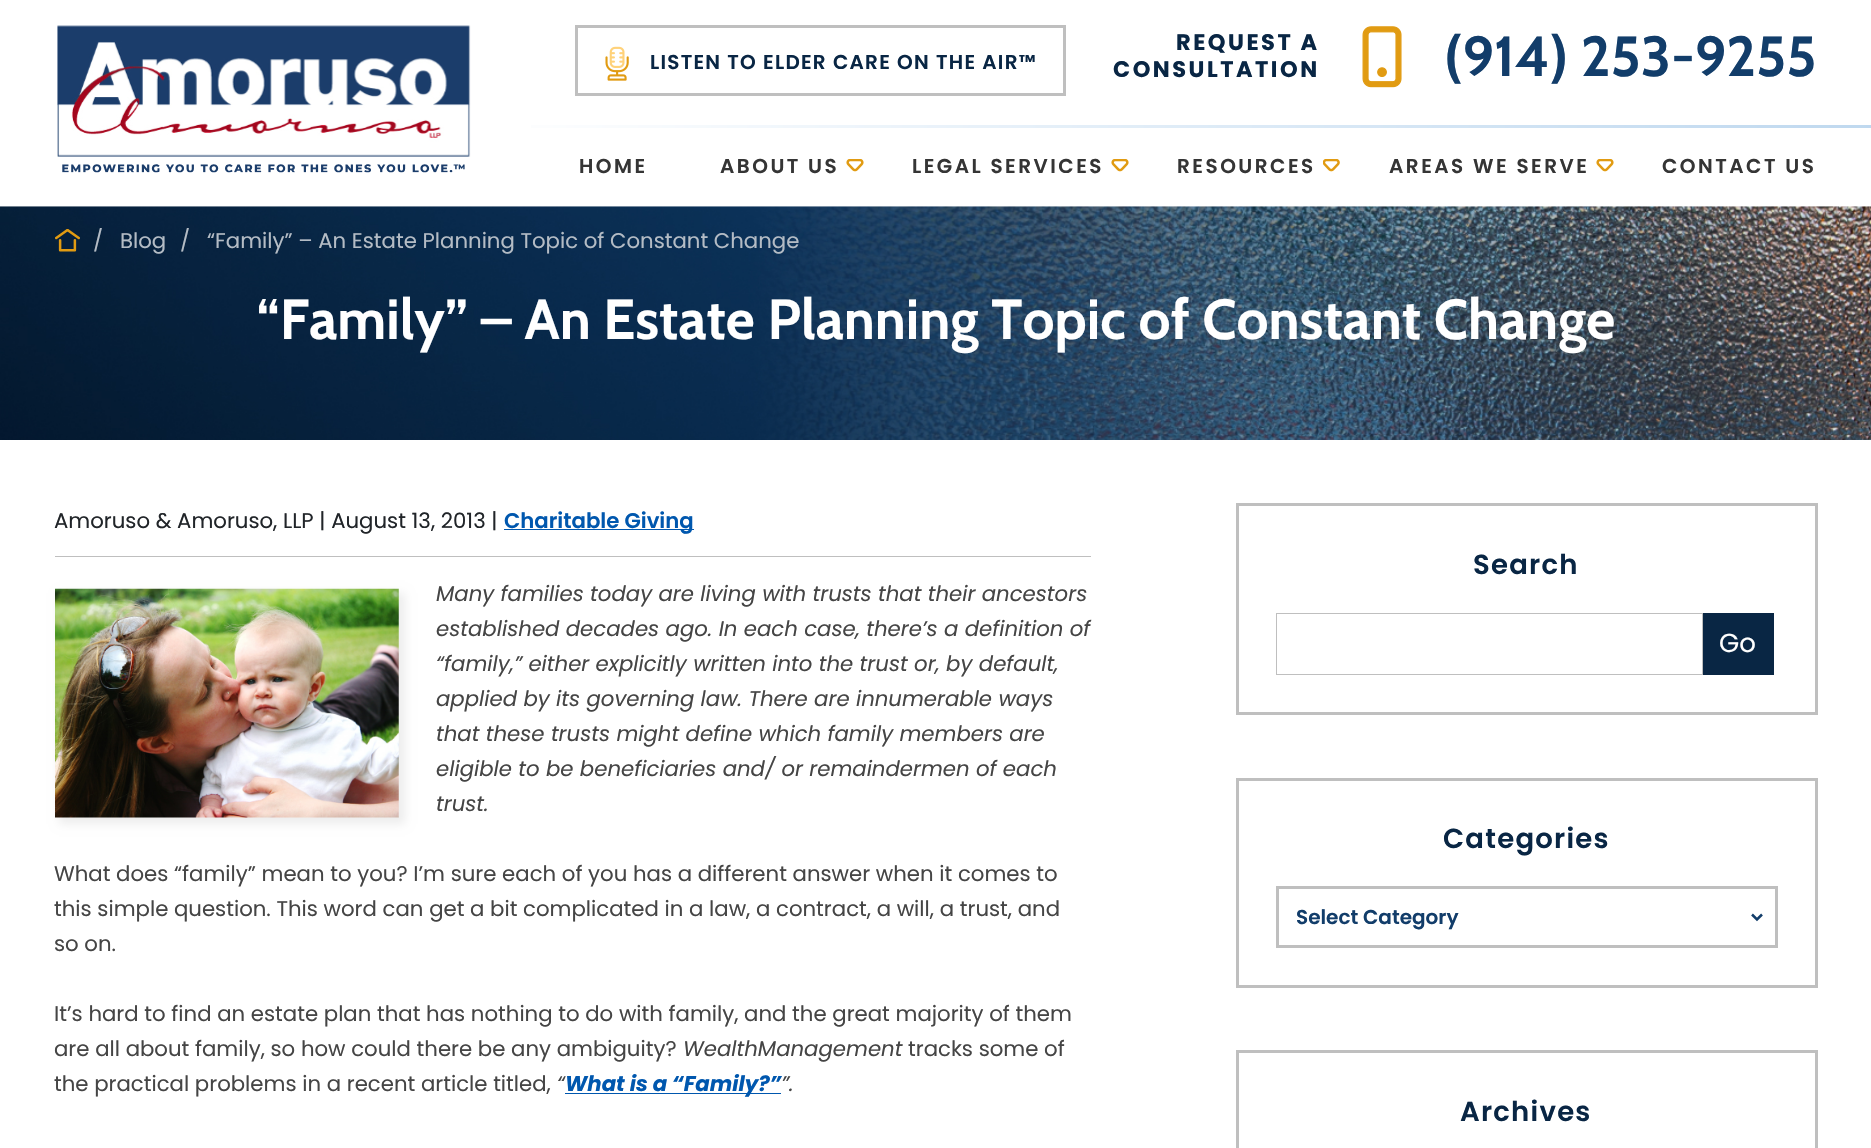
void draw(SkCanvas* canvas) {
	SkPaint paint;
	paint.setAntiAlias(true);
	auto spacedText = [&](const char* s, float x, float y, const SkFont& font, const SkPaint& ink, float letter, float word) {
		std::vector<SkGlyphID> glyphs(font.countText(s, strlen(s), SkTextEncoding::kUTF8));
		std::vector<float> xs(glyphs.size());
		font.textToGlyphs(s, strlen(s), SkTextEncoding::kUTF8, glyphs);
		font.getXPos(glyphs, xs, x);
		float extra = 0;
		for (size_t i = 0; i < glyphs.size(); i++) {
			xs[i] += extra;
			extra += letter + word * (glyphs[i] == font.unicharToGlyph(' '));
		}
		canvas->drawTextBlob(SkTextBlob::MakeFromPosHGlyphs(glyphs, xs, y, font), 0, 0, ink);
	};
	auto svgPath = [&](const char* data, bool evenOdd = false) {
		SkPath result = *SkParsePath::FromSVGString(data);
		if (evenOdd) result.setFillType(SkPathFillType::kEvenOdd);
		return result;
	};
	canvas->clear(0xffffffff);
	canvas->drawImageRect(SkImages::DeferredFromEncodedData(SkData::MakeFromFileName("img1.png")), SkRect::MakeXYWH(57, 25, 414, 148), SkSamplingOptions());
	paint.setStroke(true);
	paint.setStrokeWidth(3);
	paint.setColor(0xffbfbfbf);
	canvas->drawRect(SkRect::MakeXYWH(576.5, 26.5, 488, 68), paint);
	canvas->drawImageRect(SkImages::DeferredFromEncodedData(SkData::MakeFromFileName("img2.png")), SkRect::MakeXYWH(605, 46, 24, 35), SkSamplingOptions());
	SkFont f1(fontMgr->matchFamilyStyle("Poppins", SkFontStyle(600, SkFontStyle::kNormal_Width, SkFontStyle::kUpright_Slant)), 20);
	f1.setSubpixel(true);
	paint.setStroke(false);
	paint.setColor(0xff092644);
	spacedText("LISTEN TO ELDER CARE ON THE AIR™", 650, 69, f1, paint, 1.25, 0);
	SkFont f2(fontMgr->matchFamilyStyle("Poppins", SkFontStyle::Bold()), 22.5);
	f2.setSubpixel(true);
	spacedText("REQUEST A", 1176, 50, f2, paint, 2.5, 0);
	spacedText("CONSULTATION", 1113, 77, f2, paint, 2.5, 0);
	canvas->drawImageRect(SkImages::DeferredFromEncodedData(SkData::MakeFromFileName("img3.png")), SkRect::MakeXYWH(1362, 26, 40, 62), SkSamplingOptions());
	SkFont f3(fontMgr->matchFamilyStyle("Cabin", SkFontStyle::Bold()), 56.25);
	f3.setSubpixel(true);
	paint.setColor(0xff123d6a);
	canvas->drawString("(914) 253-9255", 1444, 76, f3, paint);
	{
		const SkColor colors[] = {0xffffffff, 0xffb8d4ed};
		const float stops[] = {0, 1};
		const SkPoint ends[] = {{476, 126}, {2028, 126}};
		paint.setShader(SkGradientShader::MakeLinear(ends, colors, stops, 2, SkTileMode::kClamp));
		paint.setAlpha(255);
	}
	canvas->drawRect(SkRect::MakeXYWH(531, 125, 1340, 3), paint);
	paint.setShader(nullptr);
	paint.setColor(0xff353535);
	spacedText("HOME", 579, 173, f1, paint, 2.5, 0);
	spacedText("ABOUT US", 720, 173, f1, paint, 2.5, 0);
	canvas->drawImageRect(SkImages::DeferredFromEncodedData(SkData::MakeFromFileName("img4.png")), SkRect::MakeXYWH(846, 159, 18, 13), SkSamplingOptions());
	spacedText("LEGAL SERVICES", 912, 173, f1, paint, 2.5, 0);
	canvas->drawImageRect(SkImages::DeferredFromEncodedData(SkData::MakeFromFileName("img4.png")), SkRect::MakeXYWH(1111, 159, 18, 13), SkSamplingOptions());
	spacedText("RESOURCES", 1177, 173, f1, paint, 2.5, 0);
	canvas->drawImageRect(SkImages::DeferredFromEncodedData(SkData::MakeFromFileName("img5.png")), SkRect::MakeXYWH(1323, 159, 17, 13), SkSamplingOptions());
	spacedText("AREAS WE SERVE", 1389, 173, f1, paint, 2.5, 0);
	canvas->drawImageRect(SkImages::DeferredFromEncodedData(SkData::MakeFromFileName("img4.png")), SkRect::MakeXYWH(1596, 159, 18, 13), SkSamplingOptions());
	spacedText("CONTACT US", 1662, 173, f1, paint, 2.5, 0);
	canvas->drawImageRect(SkImages::DeferredFromEncodedData(SkData::MakeFromFileName("img6.png")), SkRect::MakeXYWH(0, 206, 1871, 234), SkSamplingOptions());
	canvas->drawImageRect(SkImages::DeferredFromEncodedData(SkData::MakeFromFileName("img7.png")), SkRect::MakeXYWH(55, 229, 25, 23), SkSamplingOptions());
	SkFont f4(fontMgr->matchFamilyStyle("Poppins", SkFontStyle::Normal()), 21.25);
	f4.setSubpixel(true);
	paint.setColor(0xffb4bcc5);
	canvas->drawString("/", 93, 248, f4, paint);
	canvas->drawString("Blog", 120, 248, f4, paint);
	canvas->drawString("/", 180, 248, f4, paint);
	canvas->drawString("“Family” – An Estate Planning Topic of Constant Change", 207, 248, f4, paint);
	paint.setColor(0xffffffff);
	canvas->drawString("“Family” – An Estate Planning Topic of Constant Change", 256, 339, f3, paint);
	paint.setColor(0xffbfbfbf);
	canvas->drawRect(SkRect::MakeXYWH(55, 556, 1036, 1), paint);
	paint.setColor(0xff212529);
	canvas->drawString("Amoruso & Amoruso, LLP | August 13, 2013 |", 54, 528, f4, paint);
	paint.setColor(0xff0057ae);
	canvas->drawRect(SkRect::MakeXYWH(504, 529, 190, 1), paint);
	SkFont f5(fontMgr->matchFamilyStyle("Poppins", SkFontStyle(600, SkFontStyle::kNormal_Width, SkFontStyle::kUpright_Slant)), 21.25);
	f5.setSubpixel(true);
	canvas->drawString("Charitable Giving", 504, 528, f5, paint);
	paint.setColor(0x12000000);
	paint.setMaskFilter(SkMaskFilter::MakeBlur(kNormal_SkBlurStyle, 4.5));
	canvas->drawRect(SkRect::MakeXYWH(59, 593, 346, 231), paint);
	paint.setMaskFilter(nullptr);
	canvas->drawImageRect(SkImages::DeferredFromEncodedData(SkData::MakeFromFileName("img8.png")), SkRect::MakeXYWH(55, 588, 344, 230), SkSamplingOptions());
	SkFont f6(fontMgr->matchFamilyStyle("Poppins", SkFontStyle::Italic()), 21.25);
	f6.setSubpixel(true);
	paint.setColor(0xff454545);
	canvas->drawString("Many families today are living with trusts that their ancestors", 436, 601, f6, paint);
	canvas->drawString("established decades ago. In each case, there’s a definition of", 436, 636, f6, paint);
	canvas->drawString("“family,” either explicitly written into the trust or, by default,", 436, 671, f6, paint);
	canvas->drawString("applied by its governing law. There are innumerable ways", 436, 706, f6, paint);
	canvas->drawString("that these trusts might define which family members are", 436, 741, f6, paint);
	canvas->drawString("eligible to be beneficiaries and/ or remaindermen of each", 436, 776, f6, paint);
	canvas->drawString("trust.", 436, 811, f6, paint);
	canvas->drawString("What does “family” mean to you? I’m sure each of you has a different answer when it comes to", 54, 881, f4, paint);
	canvas->drawString("this simple question. This word can get a bit complicated in a law, a contract, a will, a trust, and", 54, 916, f4, paint);
	canvas->drawString("so on.", 54, 951, f4, paint);
	canvas->drawString("It’s hard to find an estate plan that has nothing to do with family, and the great majority of them", 54, 1021, f4, paint);
	canvas->drawString("are all about family, so how could there be any ambiguity?", 54, 1056, f4, paint);
	canvas->drawString("WealthManagement", 683, 1056, f6, paint);
	canvas->drawString("tracks some of", 908, 1056, f4, paint);
	canvas->drawString("the practical problems in a recent article titled,", 54, 1091, f4, paint);
	canvas->drawString("“", 557, 1091, f6, paint);
	paint.setColor(0xff0057ae);
	canvas->drawRect(SkRect::MakeXYWH(565, 1093, 216, 1), paint);
	SkFont f7(fontMgr->matchFamilyStyle("Poppins", SkFontStyle::BoldItalic()), 21.25);
	f7.setSubpixel(true);
	canvas->drawString("What is a “Family?”", 565, 1091, f7, paint);
	paint.setColor(0xff454545);
	canvas->drawString("”.", 781, 1091, f6, paint);
	paint.setStroke(true);
	paint.setColor(0xffbfbfbf);
	canvas->drawRect(SkRect::MakeXYWH(1237.5, 504.5, 579, 209), paint);
	SkFont f8(fontMgr->matchFamilyStyle("Poppins", SkFontStyle(600, SkFontStyle::kNormal_Width, SkFontStyle::kUpright_Slant)), 27.5);
	f8.setSubpixel(true);
	paint.setStroke(false);
	paint.setColor(0xff092644);
	spacedText("Search", 1473, 574, f8, paint, 1.25, 0);
	paint.setStroke(true);
	paint.setStrokeWidth(1);
	paint.setColor(0xffbfbfbf);
	canvas->drawRect(SkRect::MakeXYWH(1276.5, 613.5, 426, 61), paint);
	paint.setStroke(false);
	paint.setColor(0xff092644);
	canvas->drawRect(SkRect::MakeXYWH(1703, 613, 71, 62), paint);
	SkFont f9(fontMgr->matchFamilyStyle("Poppins", SkFontStyle::Normal()), 26);
	f9.setSubpixel(true);
	paint.setColor(0xffffffff);
	canvas->drawString("Go", 1719, 652, f9, paint);
	paint.setStroke(true);
	paint.setStrokeWidth(3);
	paint.setColor(0xffbfbfbf);
	canvas->drawRect(SkRect::MakeXYWH(1237.5, 779.5, 579, 207), paint);
	paint.setStroke(false);
	paint.setColor(0xff092644);
	spacedText("Categories", 1443, 848, f8, paint, 1.25, 0);
	paint.setStroke(true);
	paint.setColor(0xffbfbfbf);
	canvas->drawRect(SkRect::MakeXYWH(1277.5, 887.5, 499, 59), paint);
	paint.setStrokeWidth(2.5);
	paint.setColor(0xff123d6a);
	canvas->drawPath(svgPath("M1752 914.5L1757 919.5L1762 914.5"), paint);
	paint.setStroke(false);
	canvas->drawString("Select Category", 1296, 924, f1, paint);
	paint.setStroke(true);
	paint.setStrokeWidth(3);
	paint.setColor(0xffbfbfbf);
	canvas->drawRect(SkRect::MakeXYWH(1237.5, 1051.5, 579, 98), paint);
	paint.setStroke(false);
	paint.setColor(0xff092644);
	spacedText("Archives", 1460, 1121, f8, paint, 1.25, 0);
}
